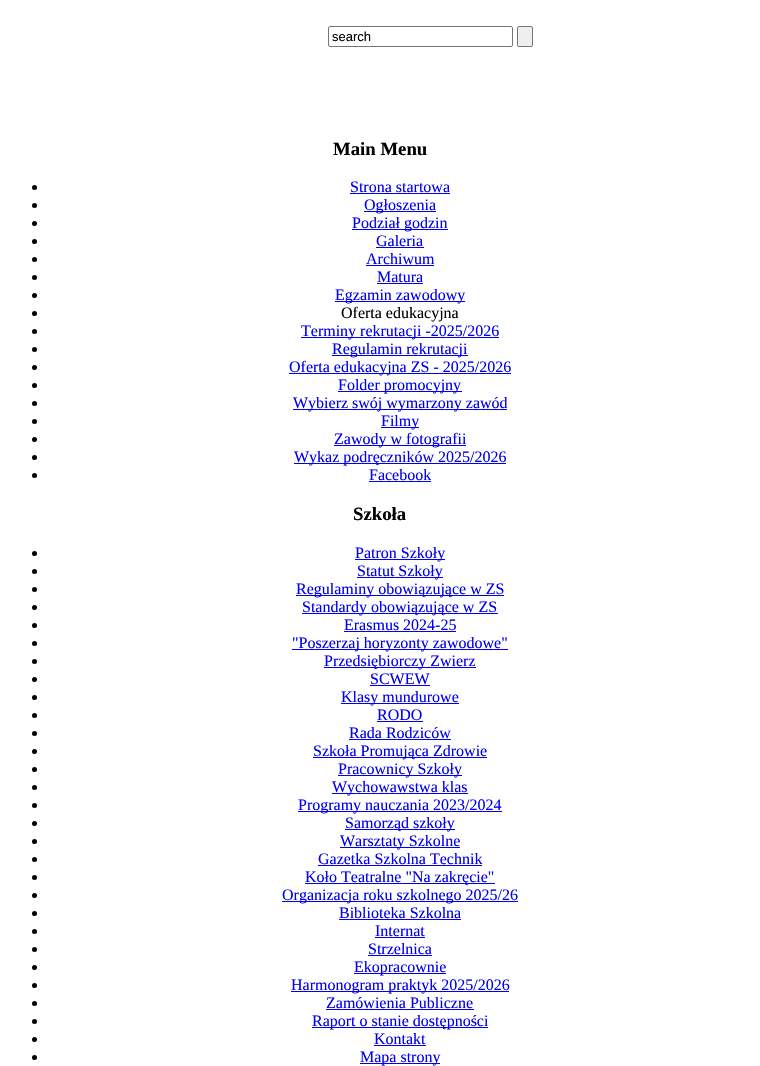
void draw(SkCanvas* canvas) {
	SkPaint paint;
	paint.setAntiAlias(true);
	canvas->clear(0xffffffff);
	paint.setStroke(true);
	paint.setStrokeWidth(1);
	paint.setColor(0xff767676);
	canvas->drawRoundRect(SkRect::MakeXYWH(328.5, 26.5, 184, 20), 1.5, 1.5, paint);
	SkFont f1(fontMgr->matchFamilyStyle("Liberation Sans", SkFontStyle::Normal()), 13);
	f1.setSubpixel(true);
	paint.setStroke(false);
	paint.setColor(0xff000000);
	canvas->drawString("search", 332, 41, f1, paint);
	paint.setColor(0xffefefef);
	canvas->drawRoundRect(SkRect::MakeXYWH(517.5, 26.5, 15, 20), 1.5, 1.5, paint);
	paint.setStroke(true);
	paint.setColor(0xff767676);
	canvas->drawRoundRect(SkRect::MakeXYWH(517.5, 26.5, 15, 20), 1.5, 1.5, paint);
	SkFont f2(fontMgr->matchFamilyStyle("Liberation Serif", SkFontStyle::Bold()), 18.75);
	f2.setSubpixel(true);
	paint.setStroke(false);
	paint.setColor(0xff000000);
	canvas->drawString("Main Menu", 333, 155, f2, paint);
	canvas->drawCircle(34.5, 187.5, 2.5, paint);
	SkFont f3(fontMgr->matchFamilyStyle("Liberation Serif", SkFontStyle::Normal()), 16);
	f3.setSubpixel(true);
	paint.setColor(0xff0000ee);
	canvas->drawString("Strona startowa", 350, 192, f3, paint);
	canvas->drawRect(SkRect::MakeXYWH(350, 193, 100, 1), paint);
	paint.setColor(0xff000000);
	canvas->drawCircle(34.5, 205.5, 2.5, paint);
	paint.setColor(0xff0000ee);
	canvas->drawRect(SkRect::MakeXYWH(364, 211, 72, 1), paint);
	canvas->drawString("Ogłoszenia", 364, 210, f3, paint);
	paint.setColor(0xff000000);
	canvas->drawCircle(34.5, 223.5, 2.5, paint);
	paint.setColor(0xff0000ee);
	canvas->drawRect(SkRect::MakeXYWH(352, 229, 96, 1), paint);
	canvas->drawString("Podział godzin", 352, 228, f3, paint);
	paint.setColor(0xff000000);
	canvas->drawCircle(34.5, 241.5, 2.5, paint);
	paint.setColor(0xff0000ee);
	canvas->drawString("Galeria", 376, 246, f3, paint);
	canvas->drawRect(SkRect::MakeXYWH(376, 247, 48, 1), paint);
	paint.setColor(0xff000000);
	canvas->drawCircle(34.5, 259.5, 2.5, paint);
	paint.setColor(0xff0000ee);
	canvas->drawString("Archiwum", 366, 264, f3, paint);
	canvas->drawRect(SkRect::MakeXYWH(366, 265, 68, 1), paint);
	paint.setColor(0xff000000);
	canvas->drawCircle(34.5, 277.5, 2.5, paint);
	paint.setColor(0xff0000ee);
	canvas->drawString("Matura", 377, 282, f3, paint);
	canvas->drawRect(SkRect::MakeXYWH(377, 283, 46, 1), paint);
	paint.setColor(0xff000000);
	canvas->drawCircle(34.5, 295.5, 2.5, paint);
	paint.setColor(0xff0000ee);
	canvas->drawRect(SkRect::MakeXYWH(335, 301, 130, 1), paint);
	canvas->drawString("Egzamin zawodowy", 335, 300, f3, paint);
	paint.setColor(0xff000000);
	canvas->drawCircle(34.5, 313.5, 2.5, paint);
	canvas->drawString("Oferta edukacyjna", 341, 318, f3, paint);
	canvas->drawCircle(34.5, 331.5, 2.5, paint);
	paint.setColor(0xff0000ee);
	canvas->drawRect(SkRect::MakeXYWH(301, 337, 198, 1), paint);
	canvas->drawString("Terminy rekrutacji -2025/2026", 301, 336, f3, paint);
	paint.setColor(0xff000000);
	canvas->drawCircle(34.5, 349.5, 2.5, paint);
	paint.setColor(0xff0000ee);
	canvas->drawRect(SkRect::MakeXYWH(332, 355, 136, 1), paint);
	canvas->drawString("Regulamin rekrutacji", 332, 354, f3, paint);
	paint.setColor(0xff000000);
	canvas->drawCircle(34.5, 367.5, 2.5, paint);
	paint.setColor(0xff0000ee);
	canvas->drawRect(SkRect::MakeXYWH(289, 373, 222, 1), paint);
	canvas->drawString("Oferta edukacyjna ZS - 2025/2026", 289, 372, f3, paint);
	paint.setColor(0xff000000);
	canvas->drawCircle(34.5, 385.5, 2.5, paint);
	paint.setColor(0xff0000ee);
	canvas->drawRect(SkRect::MakeXYWH(338, 391, 124, 1), paint);
	canvas->drawString("Folder promocyjny", 338, 390, f3, paint);
	paint.setColor(0xff000000);
	canvas->drawCircle(34.5, 403.5, 2.5, paint);
	paint.setColor(0xff0000ee);
	canvas->drawRect(SkRect::MakeXYWH(293, 409, 214, 1), paint);
	canvas->drawString("Wybierz swój wymarzony zawód", 293, 408, f3, paint);
	paint.setColor(0xff000000);
	canvas->drawCircle(34.5, 421.5, 2.5, paint);
	paint.setColor(0xff0000ee);
	canvas->drawRect(SkRect::MakeXYWH(381, 427, 38, 1), paint);
	canvas->drawString("Filmy", 381, 426, f3, paint);
	paint.setColor(0xff000000);
	canvas->drawCircle(34.5, 439.5, 2.5, paint);
	paint.setColor(0xff0000ee);
	canvas->drawRect(SkRect::MakeXYWH(334, 445, 132, 1), paint);
	canvas->drawString("Zawody w fotografii", 334, 444, f3, paint);
	paint.setColor(0xff000000);
	canvas->drawCircle(34.5, 457.5, 2.5, paint);
	paint.setColor(0xff0000ee);
	canvas->drawRect(SkRect::MakeXYWH(294, 463, 212, 1), paint);
	canvas->drawString("Wykaz podręczników 2025/2026", 294, 462, f3, paint);
	paint.setColor(0xff000000);
	canvas->drawCircle(34.5, 475.5, 2.5, paint);
	paint.setColor(0xff0000ee);
	canvas->drawString("Facebook", 369, 480, f3, paint);
	canvas->drawRect(SkRect::MakeXYWH(369, 481, 62, 1), paint);
	paint.setColor(0xff000000);
	canvas->drawString("Szkoła", 353, 520, f2, paint);
	canvas->drawCircle(34.5, 553.5, 2.5, paint);
	paint.setColor(0xff0000ee);
	canvas->drawRect(SkRect::MakeXYWH(355, 559, 90, 1), paint);
	canvas->drawString("Patron Szkoły", 355, 558, f3, paint);
	paint.setColor(0xff000000);
	canvas->drawCircle(34.5, 571.5, 2.5, paint);
	paint.setColor(0xff0000ee);
	canvas->drawRect(SkRect::MakeXYWH(357, 577, 86, 1), paint);
	canvas->drawString("Statut Szkoły", 357, 576, f3, paint);
	paint.setColor(0xff000000);
	canvas->drawCircle(34.5, 589.5, 2.5, paint);
	paint.setColor(0xff0000ee);
	canvas->drawRect(SkRect::MakeXYWH(296, 595, 208, 1), paint);
	canvas->drawString("Regulaminy obowiązujące w ZS", 296, 594, f3, paint);
	paint.setColor(0xff000000);
	canvas->drawCircle(34.5, 607.5, 2.5, paint);
	paint.setColor(0xff0000ee);
	canvas->drawRect(SkRect::MakeXYWH(302, 613, 196, 1), paint);
	canvas->drawString("Standardy obowiązujące w ZS", 302, 612, f3, paint);
	paint.setColor(0xff000000);
	canvas->drawCircle(34.5, 625.5, 2.5, paint);
	paint.setColor(0xff0000ee);
	canvas->drawString("Erasmus 2024-25", 344, 630, f3, paint);
	canvas->drawRect(SkRect::MakeXYWH(344, 631, 112, 1), paint);
	paint.setColor(0xff000000);
	canvas->drawCircle(34.5, 643.5, 2.5, paint);
	paint.setColor(0xff0000ee);
	canvas->drawRect(SkRect::MakeXYWH(292, 649, 216, 1), paint);
	canvas->drawString("\"Poszerzaj horyzonty zawodowe\"", 292, 648, f3, paint);
	paint.setColor(0xff000000);
	canvas->drawCircle(34.5, 661.5, 2.5, paint);
	paint.setColor(0xff0000ee);
	canvas->drawRect(SkRect::MakeXYWH(324, 667, 152, 1), paint);
	canvas->drawString("Przedsiębiorczy Zwierz", 324, 666, f3, paint);
	paint.setColor(0xff000000);
	canvas->drawCircle(34.5, 679.5, 2.5, paint);
	paint.setColor(0xff0000ee);
	canvas->drawString("SCWEW", 370, 684, f3, paint);
	canvas->drawRect(SkRect::MakeXYWH(370, 685, 60, 1), paint);
	paint.setColor(0xff000000);
	canvas->drawCircle(34.5, 697.5, 2.5, paint);
	paint.setColor(0xff0000ee);
	canvas->drawRect(SkRect::MakeXYWH(341, 703, 118, 1), paint);
	canvas->drawString("Klasy mundurowe", 341, 702, f3, paint);
	paint.setColor(0xff000000);
	canvas->drawCircle(34.5, 715.5, 2.5, paint);
	paint.setColor(0xff0000ee);
	canvas->drawString("RODO", 377, 720, f3, paint);
	canvas->drawRect(SkRect::MakeXYWH(377, 721, 46, 1), paint);
	paint.setColor(0xff000000);
	canvas->drawCircle(34.5, 733.5, 2.5, paint);
	paint.setColor(0xff0000ee);
	canvas->drawString("Rada Rodziców", 349, 738, f3, paint);
	canvas->drawRect(SkRect::MakeXYWH(349, 739, 102, 1), paint);
	paint.setColor(0xff000000);
	canvas->drawCircle(34.5, 751.5, 2.5, paint);
	paint.setColor(0xff0000ee);
	canvas->drawRect(SkRect::MakeXYWH(313, 757, 174, 1), paint);
	canvas->drawString("Szkoła Promująca Zdrowie", 313, 756, f3, paint);
	paint.setColor(0xff000000);
	canvas->drawCircle(34.5, 769.5, 2.5, paint);
	paint.setColor(0xff0000ee);
	canvas->drawRect(SkRect::MakeXYWH(338, 775, 124, 1), paint);
	canvas->drawString("Pracownicy Szkoły", 338, 774, f3, paint);
	paint.setColor(0xff000000);
	canvas->drawCircle(34.5, 787.5, 2.5, paint);
	paint.setColor(0xff0000ee);
	canvas->drawRect(SkRect::MakeXYWH(332, 793, 136, 1), paint);
	canvas->drawString("Wychowawstwa klas", 332, 792, f3, paint);
	paint.setColor(0xff000000);
	canvas->drawCircle(34.5, 805.5, 2.5, paint);
	paint.setColor(0xff0000ee);
	canvas->drawRect(SkRect::MakeXYWH(298, 811, 204, 1), paint);
	canvas->drawString("Programy nauczania 2023/2024", 298, 810, f3, paint);
	paint.setColor(0xff000000);
	canvas->drawCircle(34.5, 823.5, 2.5, paint);
	paint.setColor(0xff0000ee);
	canvas->drawRect(SkRect::MakeXYWH(345, 829, 110, 1), paint);
	canvas->drawString("Samorząd szkoły", 345, 828, f3, paint);
	paint.setColor(0xff000000);
	canvas->drawCircle(34.5, 841.5, 2.5, paint);
	paint.setColor(0xff0000ee);
	canvas->drawRect(SkRect::MakeXYWH(340, 847, 120, 1), paint);
	canvas->drawString("Warsztaty Szkolne", 340, 846, f3, paint);
	paint.setColor(0xff000000);
	canvas->drawCircle(34.5, 859.5, 2.5, paint);
	paint.setColor(0xff0000ee);
	canvas->drawString("Gazetka Szkolna Technik", 318, 864, f3, paint);
	canvas->drawRect(SkRect::MakeXYWH(318, 865, 164, 1), paint);
	paint.setColor(0xff000000);
	canvas->drawCircle(34.5, 877.5, 2.5, paint);
	paint.setColor(0xff0000ee);
	canvas->drawRect(SkRect::MakeXYWH(305, 883, 190, 1), paint);
	canvas->drawString("Koło Teatralne \"Na zakręcie\"", 305, 882, f3, paint);
	paint.setColor(0xff000000);
	canvas->drawCircle(34.5, 895.5, 2.5, paint);
	paint.setColor(0xff0000ee);
	canvas->drawRect(SkRect::MakeXYWH(282, 901, 236, 1), paint);
	canvas->drawString("Organizacja roku szkolnego 2025/26", 282, 900, f3, paint);
	paint.setColor(0xff000000);
	canvas->drawCircle(34.5, 913.5, 2.5, paint);
	paint.setColor(0xff0000ee);
	canvas->drawString("Biblioteka Szkolna", 339, 918, f3, paint);
	canvas->drawRect(SkRect::MakeXYWH(339, 919, 122, 1), paint);
	paint.setColor(0xff000000);
	canvas->drawCircle(34.5, 931.5, 2.5, paint);
	paint.setColor(0xff0000ee);
	canvas->drawString("Internat", 375, 936, f3, paint);
	canvas->drawRect(SkRect::MakeXYWH(375, 937, 50, 1), paint);
	paint.setColor(0xff000000);
	canvas->drawCircle(34.5, 949.5, 2.5, paint);
	paint.setColor(0xff0000ee);
	canvas->drawString("Strzelnica", 368, 954, f3, paint);
	canvas->drawRect(SkRect::MakeXYWH(368, 955, 64, 1), paint);
	paint.setColor(0xff000000);
	canvas->drawCircle(34.5, 967.5, 2.5, paint);
	paint.setColor(0xff0000ee);
	canvas->drawRect(SkRect::MakeXYWH(354, 973, 92, 1), paint);
	canvas->drawString("Ekopracownie", 354, 972, f3, paint);
	paint.setColor(0xff000000);
	canvas->drawCircle(34.5, 985.5, 2.5, paint);
	paint.setColor(0xff0000ee);
	canvas->drawRect(SkRect::MakeXYWH(291, 991, 218, 1), paint);
	canvas->drawString("Harmonogram praktyk 2025/2026", 291, 990, f3, paint);
	paint.setColor(0xff000000);
	canvas->drawCircle(34.5, 1003.5, 2.5, paint);
	paint.setColor(0xff0000ee);
	canvas->drawString("Zamówienia Publiczne", 326, 1008, f3, paint);
	canvas->drawRect(SkRect::MakeXYWH(326, 1009, 148, 1), paint);
	paint.setColor(0xff000000);
	canvas->drawCircle(34.5, 1021.5, 2.5, paint);
	paint.setColor(0xff0000ee);
	canvas->drawRect(SkRect::MakeXYWH(312, 1027, 176, 1), paint);
	canvas->drawString("Raport o stanie dostępności", 312, 1026, f3, paint);
	paint.setColor(0xff000000);
	canvas->drawCircle(34.5, 1039.5, 2.5, paint);
	paint.setColor(0xff0000ee);
	canvas->drawString("Kontakt", 374, 1044, f3, paint);
	canvas->drawRect(SkRect::MakeXYWH(374, 1045, 52, 1), paint);
	paint.setColor(0xff000000);
	canvas->drawCircle(34.5, 1057.5, 2.5, paint);
	paint.setColor(0xff0000ee);
	canvas->drawRect(SkRect::MakeXYWH(360, 1063, 80, 1), paint);
	canvas->drawString("Mapa strony", 360, 1062, f3, paint);
}
